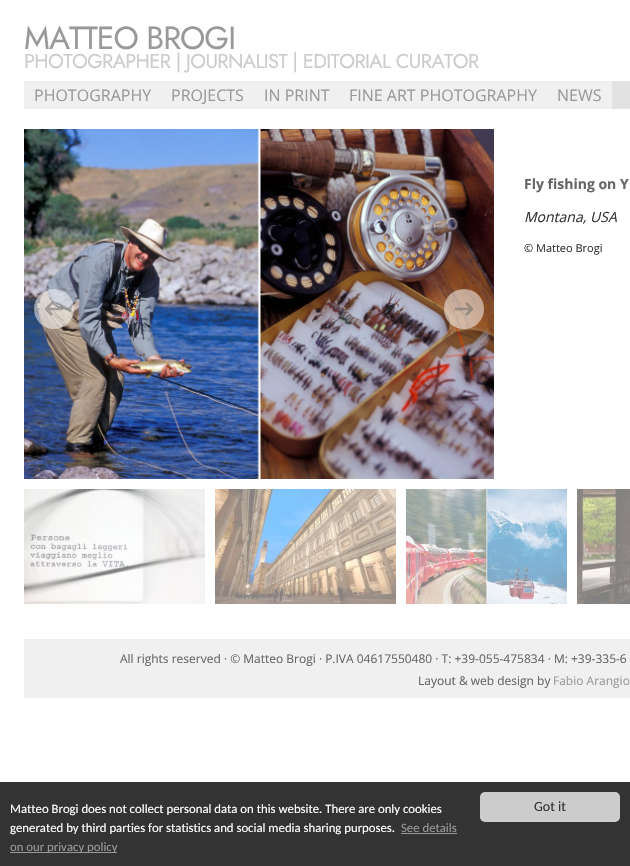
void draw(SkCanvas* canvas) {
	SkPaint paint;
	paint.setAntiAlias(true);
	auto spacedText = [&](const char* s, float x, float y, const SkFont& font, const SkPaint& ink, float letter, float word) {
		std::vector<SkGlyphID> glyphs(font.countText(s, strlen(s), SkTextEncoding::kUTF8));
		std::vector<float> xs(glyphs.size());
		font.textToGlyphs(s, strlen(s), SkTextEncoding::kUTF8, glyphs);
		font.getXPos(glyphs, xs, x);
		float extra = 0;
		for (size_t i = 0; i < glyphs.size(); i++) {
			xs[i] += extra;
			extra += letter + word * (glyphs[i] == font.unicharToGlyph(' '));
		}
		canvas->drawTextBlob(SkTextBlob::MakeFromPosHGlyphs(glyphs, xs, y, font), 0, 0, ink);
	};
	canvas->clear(0xffffffff);
	SkFont f1(fontMgr->matchFamilyStyle("Jost", SkFontStyle::Normal()), 32);
	f1.setSubpixel(true);
	paint.setColor(0xff999999);
	spacedText("MATTEO BROGI", 24, 49, f1, paint, -1, 0);
	SkFont f2(fontMgr->matchFamilyStyle("Jost", SkFontStyle::Normal()), 20);
	f2.setSubpixel(true);
	paint.setColor(0xffcccccc);
	spacedText("PHOTOGRAPHER | JOURNALIST | EDITORIAL CURATOR", 24, 68, f2, paint, -0.6, 0);
	paint.setColor(0xfff0f0f0);
	canvas->drawRect(SkRect::MakeXYWH(24, 81, 588, 28), paint);
	SkFont f3(fontMgr->matchFamilyStyle("Open Sans", SkFontStyle::Normal()), 16);
	f3.setSubpixel(true);
	paint.setColor(0xff999999);
	canvas->drawString("PHOTOGRAPHY", 34, 101, f3, paint);
	canvas->drawString("PROJECTS", 171, 101, f3, paint);
	canvas->drawString("IN PRINT", 264, 101, f3, paint);
	canvas->drawString("FINE ART PHOTOGRAPHY", 349, 101, f3, paint);
	canvas->drawString("NEWS", 557, 101, f3, paint);
	paint.setColor(0xffe2e2e2);
	canvas->drawRect(SkRect::MakeXYWH(612, 81, 18, 28), paint);
	canvas->drawImageRect(SkImages::DeferredFromEncodedData(SkData::MakeFromFileName("img1.png")), SkRect::MakeXYWH(24, 129, 470, 350), SkSamplingOptions());
	paint.setColor(0x80ffffff);
	canvas->drawCircle(54, 309, 20, paint);
	canvas->drawImageRect(SkImages::DeferredFromEncodedData(SkData::MakeFromFileName("img2.png")), SkRect::MakeXYWH(44, 302, 20, 14), SkSamplingOptions());
	canvas->drawCircle(464, 309, 20, paint);
	canvas->drawImageRect(SkImages::DeferredFromEncodedData(SkData::MakeFromFileName("img3.png")), SkRect::MakeXYWH(454, 302, 20, 14), SkSamplingOptions());
	SkFont f4(fontMgr->matchFamilyStyle("Open Sans", SkFontStyle::Bold()), 14);
	f4.setSubpixel(true);
	paint.setColor(0xff666666);
	canvas->drawString("Fly fishing on Y", 524, 189, f4, paint);
	SkFont f5(fontMgr->matchFamilyStyle("Open Sans", SkFontStyle::Italic()), 14);
	f5.setSubpixel(true);
	paint.setColor(0xff333333);
	canvas->drawString("Montana, USA", 524, 222, f5, paint);
	SkFont f6(fontMgr->matchFamilyStyle("Open Sans", SkFontStyle::Normal()), 11);
	f6.setSubpixel(true);
	canvas->drawString("© Matteo Brogi", 524, 252, f6, paint);
	canvas->drawImageRect(SkImages::DeferredFromEncodedData(SkData::MakeFromFileName("img4.png")), SkRect::MakeXYWH(24, 489, 181, 115), SkSamplingOptions());
	canvas->drawImageRect(SkImages::DeferredFromEncodedData(SkData::MakeFromFileName("img5.png")), SkRect::MakeXYWH(215, 489, 181, 115), SkSamplingOptions());
	canvas->drawImageRect(SkImages::DeferredFromEncodedData(SkData::MakeFromFileName("img6.png")), SkRect::MakeXYWH(406, 489, 161, 115), SkSamplingOptions());
	canvas->drawImageRect(SkImages::DeferredFromEncodedData(SkData::MakeFromFileName("img7.png")), SkRect::MakeXYWH(577, 489, 53, 115), SkSamplingOptions());
	paint.setColor(0xfff0f0f0);
	canvas->drawRect(SkRect::MakeXYWH(24, 639, 606, 59), paint);
	SkFont f7(fontMgr->matchFamilyStyle("Open Sans", SkFontStyle::Normal()), 12);
	f7.setSubpixel(true);
	paint.setColor(0xff666666);
	canvas->drawString("All rights reserved · © Matteo Brogi · P.IVA 04617550480 · T: +39-055-475834 · M: +39-335-6", 120, 663, f7, paint);
	canvas->drawString("Layout & web design by", 418, 685, f7, paint);
	paint.setColor(0xff999999);
	canvas->drawString("Fabio Arangio", 553, 685, f7, paint);
	paint.setColor(0xff333333);
	canvas->drawRect(SkRect::MakeXYWH(0, 782, 630, 84), paint);
	SkFont f8(fontMgr->matchFamilyStyle("Carlito", SkFontStyle::Normal()), 12.75);
	f8.setSubpixel(true);
	paint.setColor(0xffffffff);
	canvas->drawString("Matteo Brogi does not collect personal data on this website. There are only cookies", 10, 813, f8, paint);
	canvas->drawString("generated by third parties for statistics and social media sharing purposes.", 10, 832, f8, paint);
	paint.setColor(0xff999999);
	canvas->drawString("See details", 401, 832, f8, paint);
	canvas->drawRect(SkRect::MakeXYWH(401, 833, 56, 1), paint);
	canvas->drawRect(SkRect::MakeXYWH(10, 852, 107, 1), paint);
	canvas->drawString("on our privacy policy", 10, 851, f8, paint);
	paint.setColor(0xffcccccc);
	canvas->drawRoundRect(SkRect::MakeXYWH(480, 792, 140, 30), 5, 5, paint);
	SkFont f9(fontMgr->matchFamilyStyle("Carlito", SkFontStyle::Normal()), 14);
	f9.setSubpixel(true);
	paint.setColor(0xff333333);
	canvas->drawString("Got it", 534, 811, f9, paint);
}
